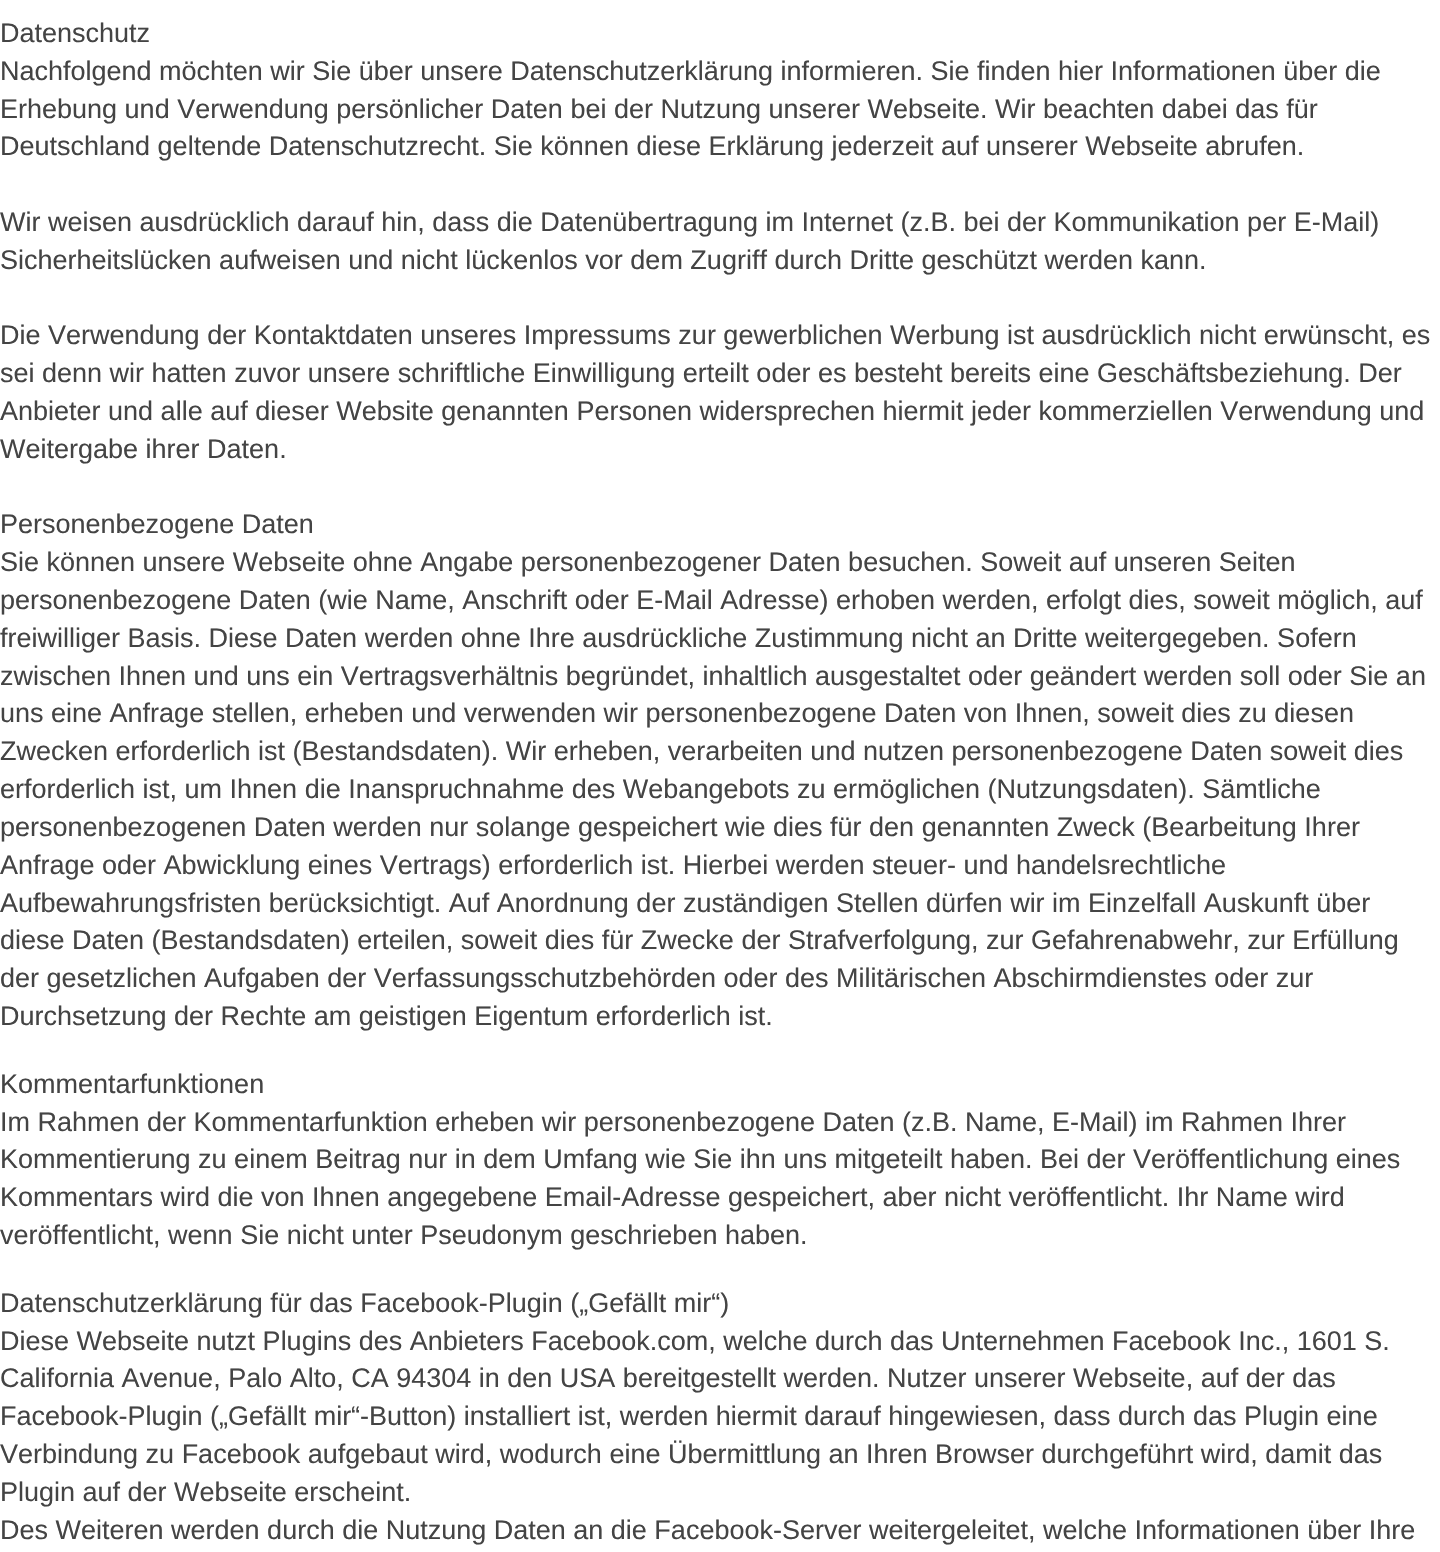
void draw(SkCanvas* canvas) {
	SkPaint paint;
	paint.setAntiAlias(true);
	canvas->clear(0xffffffff);
	SkFont f1(fontMgr->matchFamilyStyle("Liberation Sans", SkFontStyle::Normal()), 27);
	f1.setSubpixel(true);
	paint.setColor(0xff444444);
	canvas->drawString("Datenschutz", 0, 42, f1, paint);
	canvas->drawString("Nachfolgend möchten wir Sie über unsere Datenschutzerklärung informieren. Sie finden hier Informationen über die", 0, 80, f1, paint);
	canvas->drawString("Erhebung und Verwendung persönlicher Daten bei der Nutzung unserer Webseite. Wir beachten dabei das für", 0, 118, f1, paint);
	canvas->drawString("Deutschland geltende Datenschutzrecht. Sie können diese Erklärung jederzeit auf unserer Webseite abrufen.", 0, 155, f1, paint);
	canvas->drawString("Wir weisen ausdrücklich darauf hin, dass die Datenübertragung im Internet (z.B. bei der Kommunikation per E-Mail)", 0, 231, f1, paint);
	canvas->drawString("Sicherheitslücken aufweisen und nicht lückenlos vor dem Zugriff durch Dritte geschützt werden kann.", 0, 269, f1, paint);
	canvas->drawString("Die Verwendung der Kontaktdaten unseres Impressums zur gewerblichen Werbung ist ausdrücklich nicht erwünscht, es", 0, 344, f1, paint);
	canvas->drawString("sei denn wir hatten zuvor unsere schriftliche Einwilligung erteilt oder es besteht bereits eine Geschäftsbeziehung. Der", 0, 382, f1, paint);
	canvas->drawString("Anbieter und alle auf dieser Website genannten Personen widersprechen hiermit jeder kommerziellen Verwendung und", 0, 420, f1, paint);
	canvas->drawString("Weitergabe ihrer Daten.", 0, 458, f1, paint);
	canvas->drawString("Personenbezogene Daten", 0, 533, f1, paint);
	canvas->drawString("Sie können unsere Webseite ohne Angabe personenbezogener Daten besuchen. Soweit auf unseren Seiten", 0, 571, f1, paint);
	canvas->drawString("personenbezogene Daten (wie Name, Anschrift oder E-Mail Adresse) erhoben werden, erfolgt dies, soweit möglich, auf", 0, 609, f1, paint);
	canvas->drawString("freiwilliger Basis. Diese Daten werden ohne Ihre ausdrückliche Zustimmung nicht an Dritte weitergegeben. Sofern", 0, 647, f1, paint);
	canvas->drawString("zwischen Ihnen und uns ein Vertragsverhältnis begründet, inhaltlich ausgestaltet oder geändert werden soll oder Sie an", 0, 685, f1, paint);
	canvas->drawString("uns eine Anfrage stellen, erheben und verwenden wir personenbezogene Daten von Ihnen, soweit dies zu diesen", 0, 722, f1, paint);
	canvas->drawString("Zwecken erforderlich ist (Bestandsdaten). Wir erheben, verarbeiten und nutzen personenbezogene Daten soweit dies", 0, 760, f1, paint);
	canvas->drawString("erforderlich ist, um Ihnen die Inanspruchnahme des Webangebots zu ermöglichen (Nutzungsdaten). Sämtliche", 0, 798, f1, paint);
	canvas->drawString("personenbezogenen Daten werden nur solange gespeichert wie dies für den genannten Zweck (Bearbeitung Ihrer", 0, 836, f1, paint);
	canvas->drawString("Anfrage oder Abwicklung eines Vertrags) erforderlich ist. Hierbei werden steuer- und handelsrechtliche", 0, 874, f1, paint);
	canvas->drawString("Aufbewahrungsfristen berücksichtigt. Auf Anordnung der zuständigen Stellen dürfen wir im Einzelfall Auskunft über", 0, 912, f1, paint);
	canvas->drawString("diese Daten (Bestandsdaten) erteilen, soweit dies für Zwecke der Strafverfolgung, zur Gefahrenabwehr, zur Erfüllung", 0, 949, f1, paint);
	canvas->drawString("der gesetzlichen Aufgaben der Verfassungsschutzbehörden oder des Militärischen Abschirmdienstes oder zur", 0, 987, f1, paint);
	canvas->drawString("Durchsetzung der Rechte am geistigen Eigentum erforderlich ist.", 0, 1025, f1, paint);
	canvas->drawString("Kommentarfunktionen", 0, 1093, f1, paint);
	canvas->drawString("Im Rahmen der Kommentarfunktion erheben wir personenbezogene Daten (z.B. Name, E-Mail) im Rahmen Ihrer", 0, 1131, f1, paint);
	canvas->drawString("Kommentierung zu einem Beitrag nur in dem Umfang wie Sie ihn uns mitgeteilt haben. Bei der Veröffentlichung eines", 0, 1168, f1, paint);
	canvas->drawString("Kommentars wird die von Ihnen angegebene Email-Adresse gespeichert, aber nicht veröffentlicht. Ihr Name wird", 0, 1206, f1, paint);
	canvas->drawString("veröffentlicht, wenn Sie nicht unter Pseudonym geschrieben haben.", 0, 1244, f1, paint);
	canvas->drawString("Datenschutzerklärung für das Facebook-Plugin („Gefällt mir“)", 0, 1312, f1, paint);
	canvas->drawString("Diese Webseite nutzt Plugins des Anbieters Facebook.com, welche durch das Unternehmen Facebook Inc., 1601 S.", 0, 1350, f1, paint);
	canvas->drawString("California Avenue, Palo Alto, CA 94304 in den USA bereitgestellt werden. Nutzer unserer Webseite, auf der das", 0, 1387, f1, paint);
	canvas->drawString("Facebook-Plugin („Gefällt mir“-Button) installiert ist, werden hiermit darauf hingewiesen, dass durch das Plugin eine", 0, 1425, f1, paint);
	canvas->drawString("Verbindung zu Facebook aufgebaut wird, wodurch eine Übermittlung an Ihren Browser durchgeführt wird, damit das", 0, 1463, f1, paint);
	canvas->drawString("Plugin auf der Webseite erscheint.", 0, 1501, f1, paint);
	canvas->drawString("Des Weiteren werden durch die Nutzung Daten an die Facebook-Server weitergeleitet, welche Informationen über Ihre", 0, 1539, f1, paint);
}
